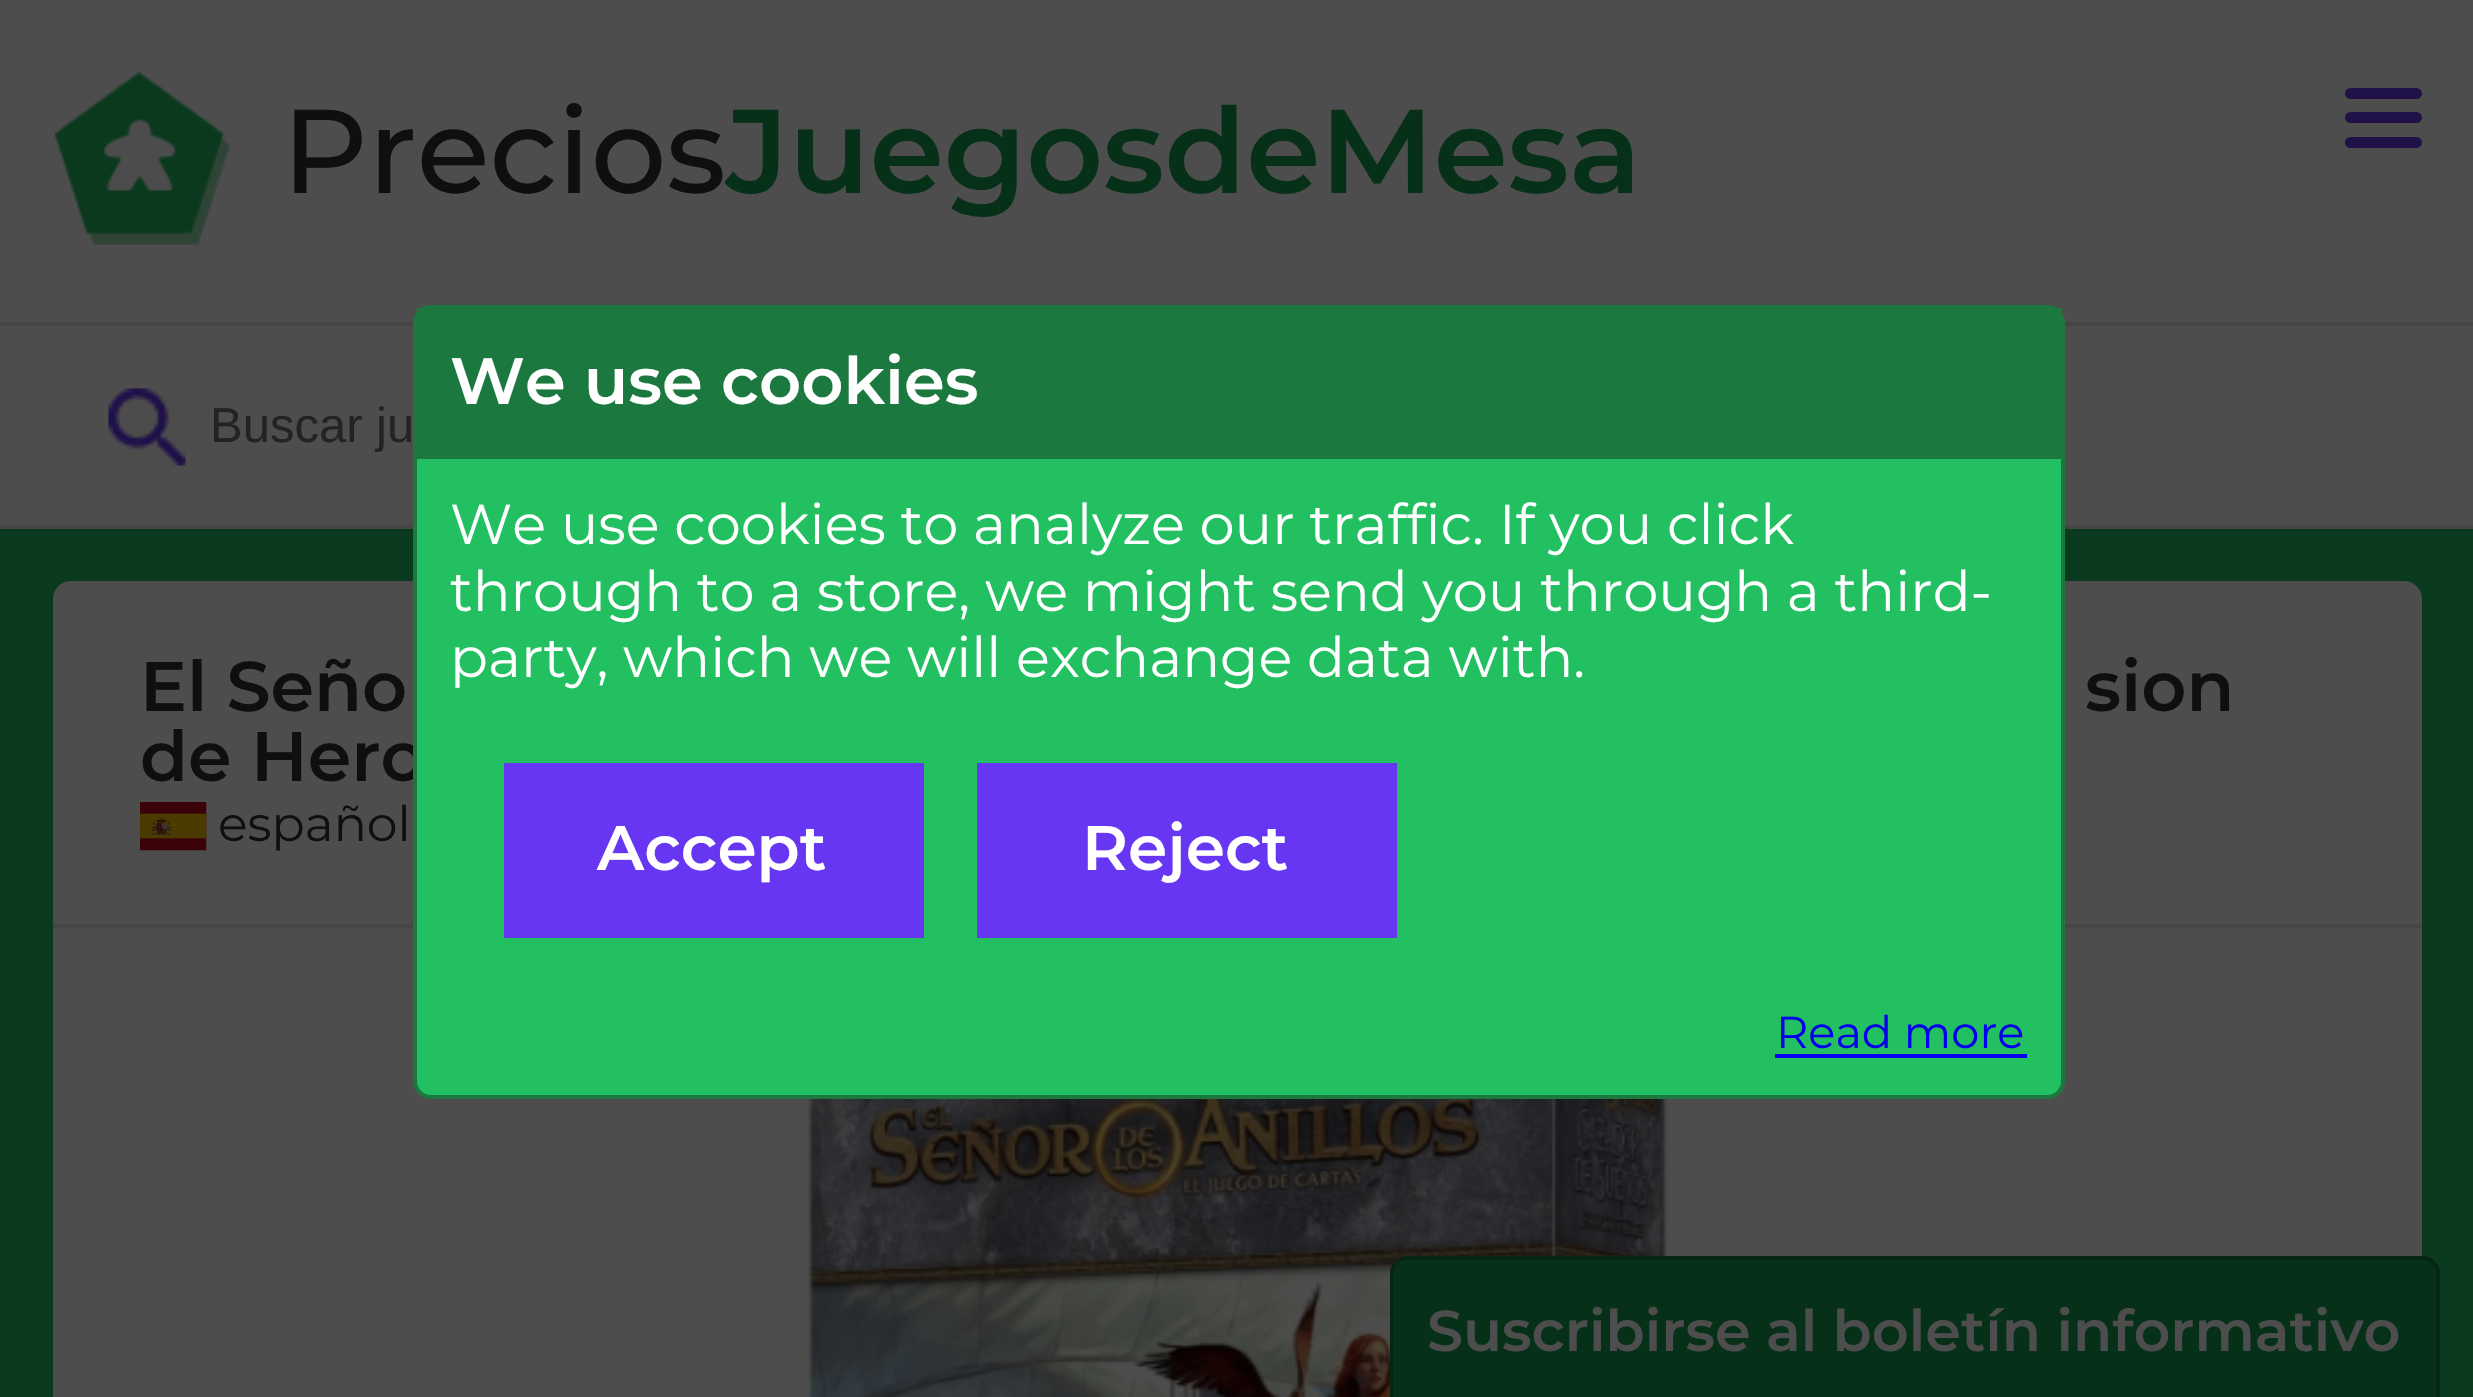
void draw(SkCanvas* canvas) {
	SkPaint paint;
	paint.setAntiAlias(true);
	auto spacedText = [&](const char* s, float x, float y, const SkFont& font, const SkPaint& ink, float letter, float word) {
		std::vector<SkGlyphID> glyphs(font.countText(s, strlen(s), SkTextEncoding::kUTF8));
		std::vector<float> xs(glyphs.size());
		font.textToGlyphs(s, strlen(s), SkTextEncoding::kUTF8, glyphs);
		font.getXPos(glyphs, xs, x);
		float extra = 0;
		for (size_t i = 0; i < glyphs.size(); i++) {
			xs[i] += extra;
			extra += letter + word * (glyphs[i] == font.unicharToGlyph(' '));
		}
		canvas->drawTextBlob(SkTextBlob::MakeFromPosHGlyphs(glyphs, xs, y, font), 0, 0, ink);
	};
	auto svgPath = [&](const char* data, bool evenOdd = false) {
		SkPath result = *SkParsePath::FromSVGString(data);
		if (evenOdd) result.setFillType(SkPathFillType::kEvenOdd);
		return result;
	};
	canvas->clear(0xff4d4d4d);
	paint.setColor(0xff464646);
	canvas->drawRect(SkRect::MakeXYWH(0, 322, 2473, 4), paint);
	canvas->drawImageRect(SkImages::DeferredFromEncodedData(SkData::MakeFromFileName("img1.png")), SkRect::MakeXYWH(54, 71, 177, 174), SkSamplingOptions());
	SkFont f1(fontMgr->matchFamilyStyle("Montserrat", SkFontStyle(100, SkFontStyle::kNormal_Width, SkFontStyle::kUpright_Slant)), 119);
	f1.setSubpixel(true);
	paint.setColor(0xff0f0f0f);
	canvas->drawString("Precios", 282, 193, f1, paint);
	SkFont f2(fontMgr->matchFamilyStyle("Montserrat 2", SkFontStyle(100, SkFontStyle::kNormal_Width, SkFontStyle::kUpright_Slant)), 119);
	f2.setSubpixel(true);
	paint.setColor(0xff063017);
	canvas->drawString("JuegosdeMesa", 726, 193, f2, paint);
	paint.setColor(0xff201249);
	canvas->drawRoundRect(SkRect::MakeXYWH(2345, 88, 77, 11), 5.5, 5.5, paint);
	canvas->drawRoundRect(SkRect::MakeXYWH(2345, 112, 77, 11), 5.5, 5.5, paint);
	canvas->drawRoundRect(SkRect::MakeXYWH(2345, 137, 77, 11), 5.5, 5.5, paint);
	paint.setColor(0xff464646);
	canvas->drawRect(SkRect::MakeXYWH(0, 525, 2473, 4), paint);
	canvas->drawImageRect(SkImages::DeferredFromEncodedData(SkData::MakeFromFileName("img2.png")), SkRect::MakeXYWH(108, 388, 78, 78), SkSamplingOptions());
	canvas->save();
	canvas->clipRect(SkRect::MakeXYWH(210, 396, 697, 56));
	SkFont f3(fontMgr->matchFamilyStyle("Liberation Sans", SkFontStyle::Normal()), 49);
	f3.setSubpixel(true);
	paint.setColor(0xff232323);
	canvas->drawString("Buscar ju", 210, 442, f3, paint);
	canvas->restore();
	paint.setColor(0xff0a3a1d);
	canvas->drawRect(SkRect::MakeXYWH(0, 529, 2473, 868), paint);
	paint.setColor(0xff4d4d4d);
	canvas->drawRoundRect(SkRect::MakeXYWH(53, 581, 2369, 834), 18, 18, paint);
	paint.setColor(0xff464646);
	canvas->drawRect(SkRect::MakeXYWH(53, 924, 2369, 4), paint);
	SkFont f4(fontMgr->matchFamilyStyle("Montserrat 2", SkFontStyle(100, SkFontStyle::kNormal_Width, SkFontStyle::kUpright_Slant)), 70);
	f4.setSubpixel(true);
	paint.setColor(0xff0f0f0f);
	canvas->drawString("de Hero", 140, 781, f4, paint);
	paint.setColor(0xff22c061);
	canvas->drawRoundRect(SkRect::MakeXYWH(415, 307, 1648, 790), 16, 16, paint);
	paint.setStroke(true);
	paint.setStrokeWidth(4);
	paint.setColor(0xff1b783f);
	canvas->drawRoundRect(SkRect::MakeXYWH(415, 307, 1648, 790), 16, 16, paint);
	paint.setStroke(false);
	canvas->drawRect(SkRect::MakeXYWH(417, 308, 1645, 151), paint);
	SkFont f5(fontMgr->matchFamilyStyle("Montserrat 2", SkFontStyle(100, SkFontStyle::kNormal_Width, SkFontStyle::kUpright_Slant)), 65.5);
	f5.setSubpixel(true);
	paint.setColor(0xffffffff);
	canvas->drawString("We use cookies", 450, 404, f5, paint);
	SkFont f6(fontMgr->matchFamilyStyle("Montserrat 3", SkFontStyle(100, SkFontStyle::kNormal_Width, SkFontStyle::kUpright_Slant)), 56);
	f6.setSubpixel(true);
	canvas->drawString("We use cookies to analyze our traffic. If you click", 450, 544, f6, paint);
	canvas->drawString("through to a store, we might send you through a third-", 450, 611, f6, paint);
	canvas->drawString("party, which we will exchange data with.", 450, 677, f6, paint);
	paint.setColor(0xff6736f3);
	canvas->drawRect(SkRect::MakeXYWH(504, 763, 420, 175), paint);
	SkFont f7(fontMgr->matchFamilyStyle("Montserrat 2", SkFontStyle(100, SkFontStyle::kNormal_Width, SkFontStyle::kUpright_Slant)), 63);
	f7.setSubpixel(true);
	paint.setColor(0xffffffff);
	canvas->drawString("Accept", 597, 870, f7, paint);
	paint.setColor(0xff6736f3);
	canvas->drawRect(SkRect::MakeXYWH(977, 763, 420, 175), paint);
	paint.setColor(0xffffffff);
	canvas->drawString("Reject", 1082, 870, f7, paint);
	SkFont f8(fontMgr->matchFamilyStyle("Montserrat 3", SkFontStyle(100, SkFontStyle::kNormal_Width, SkFontStyle::kUpright_Slant)), 44.75);
	f8.setSubpixel(true);
	paint.setColor(0xff0000ee);
	canvas->drawString("Read more", 1776, 1048, f8, paint);
	canvas->drawRect(SkRect::MakeXYWH(1775, 1054, 252, 4), paint);
	paint.setColor(0xff0f0f0f);
	canvas->drawString("El Seño", 140, 711, f4, paint);
	canvas->drawString("sion", 2085, 711, f4, paint);
	canvas->drawImageRect(SkImages::DeferredFromEncodedData(SkData::MakeFromFileName("img3.png")), SkRect::MakeXYWH(140, 802, 67, 49), SkSamplingOptions());
	SkFont f9(fontMgr->matchFamilyStyle("Montserrat 3", SkFontStyle(100, SkFontStyle::kNormal_Width, SkFontStyle::kUpright_Slant)), 49);
	f9.setSubpixel(true);
	canvas->drawString("español", 218, 841, f9, paint);
	canvas->drawImageRect(SkImages::DeferredFromEncodedData(SkData::MakeFromFileName("img4.png")), SkRect::MakeXYWH(807, 1099, 862, 298), SkSamplingOptions());
	paint.setColor(0xff063017);
	canvas->drawPath(svgPath("M1408 1257H2422C2432 1257 2440 1265 2440 1275V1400H1390V1275C1390 1265 1398 1257 1408 1257Z"), paint);
	paint.setColor(0xff082413);
	canvas->drawPath(svgPath("M1407 1256H2422C2432 1256 2440 1264 2440 1274V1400H1390V1274C1390 1264 1397 1256 1407 1256ZM1407 1260H2422C2430 1260 2436 1266 2436 1274V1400H1393V1274C1393 1266 1399 1260 1407 1260Z", true), paint);
	SkFont f10(fontMgr->matchFamilyStyle("Montserrat 2", SkFontStyle(100, SkFontStyle::kNormal_Width, SkFontStyle::kUpright_Slant)), 57.3);
	f10.setSubpixel(true);
	paint.setColor(0xff4d4d4d);
	spacedText("Suscribirse al boletín informativo", 1427, 1351, f10, paint, 0, -0.5);
}
